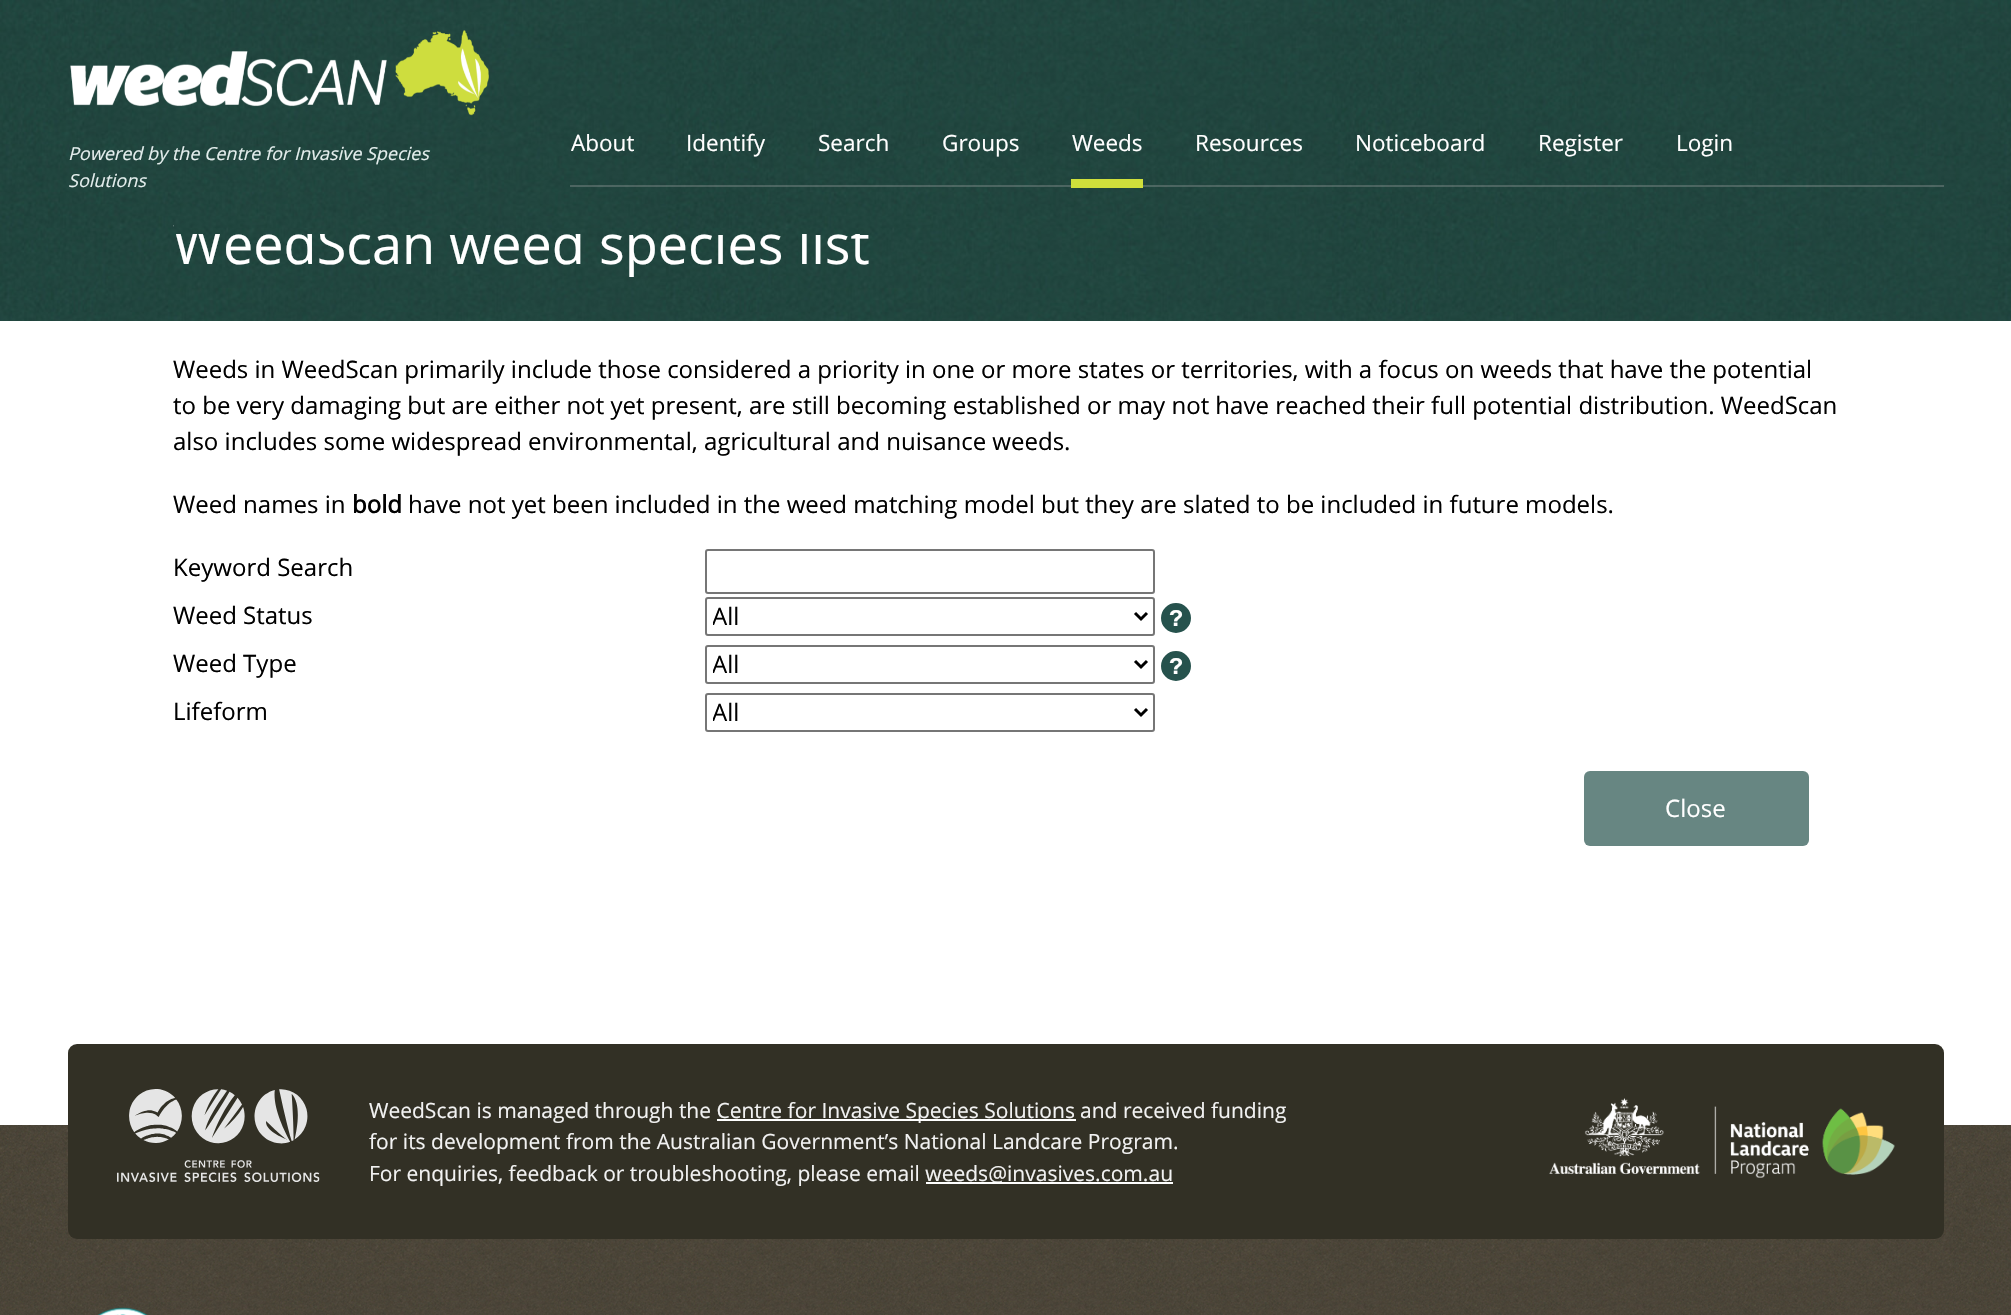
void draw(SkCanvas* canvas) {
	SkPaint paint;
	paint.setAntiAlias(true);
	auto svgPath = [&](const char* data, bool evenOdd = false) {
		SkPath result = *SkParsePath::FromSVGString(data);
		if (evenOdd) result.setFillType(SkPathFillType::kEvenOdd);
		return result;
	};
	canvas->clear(0xffffffff);
	canvas->drawImageRect(SkImages::DeferredFromEncodedData(SkData::MakeFromFileName("img3.png")), SkRect::MakeXYWH(0, 0, 2011, 321), SkSamplingOptions());
	SkFont f1(fontMgr->matchFamilyStyle("Open Sans", SkFontStyle::Normal()), 54);
	f1.setSubpixel(true);
	paint.setColor(0xffffffff);
	canvas->drawString("WeedScan weed species list", 173, 264, f1, paint);
	canvas->drawImageRect(SkImages::DeferredFromEncodedData(SkData::MakeFromFileName("img1.png")), SkRect::MakeXYWH(174, 223, 687, 11), SkSamplingOptions());
	canvas->drawImageRect(SkImages::DeferredFromEncodedData(SkData::MakeFromFileName("img2.png")), SkRect::MakeXYWH(70, 30, 419, 86), SkSamplingOptions());
	SkFont f2(fontMgr->matchFamilyStyle("Open Sans", SkFontStyle::Italic()), 18);
	f2.setSubpixel(true);
	paint.setColor(0xffe4eeed);
	canvas->drawString("Powered by the Centre for Invasive Species", 68, 160, f2, paint);
	canvas->drawString("Solutions", 68, 187, f2, paint);
	paint.setColor(0x4dafafaf);
	canvas->drawRect(SkRect::MakeXYWH(570, 185, 1374, 2), paint);
	SkFont f3(fontMgr->matchFamilyStyle("Open Sans", SkFontStyle::Normal()), 22.5);
	f3.setSubpixel(true);
	paint.setColor(0xffffffff);
	canvas->drawString("About", 571, 151, f3, paint);
	canvas->drawString("Identify", 686, 151, f3, paint);
	canvas->drawString("Search", 818, 151, f3, paint);
	canvas->drawString("Groups", 942, 151, f3, paint);
	canvas->drawString("Weeds", 1072, 151, f3, paint);
	paint.setColor(0xffcfdf3b);
	canvas->drawRect(SkRect::MakeXYWH(1071, 179, 72, 9), paint);
	paint.setColor(0xffffffff);
	canvas->drawString("Resources", 1195, 151, f3, paint);
	canvas->drawString("Noticeboard", 1355, 151, f3, paint);
	canvas->drawString("Register", 1538, 151, f3, paint);
	canvas->drawString("Login", 1676, 151, f3, paint);
	SkFont f4(fontMgr->matchFamilyStyle("Open Sans", SkFontStyle::Normal()), 24);
	f4.setSubpixel(true);
	paint.setColor(0xff000000);
	canvas->drawString("Weeds in WeedScan primarily include those considered a priority in one or more states or territories, with a focus on weeds that have the potential", 173, 378, f4, paint);
	canvas->drawString("to be very damaging but are either not yet present, are still becoming established or may not have reached their full potential distribution. WeedScan", 173, 414, f4, paint);
	canvas->drawString("also includes some widespread environmental, agricultural and nuisance weeds.", 173, 450, f4, paint);
	canvas->drawString("Weed names in", 173, 513, f4, paint);
	SkFont f5(fontMgr->matchFamilyStyle("Open Sans", SkFontStyle::Bold()), 24);
	f5.setSubpixel(true);
	canvas->drawString("bold", 352, 513, f5, paint);
	canvas->drawString("have not yet been included in the weed matching model but they are slated to be included in future models.", 408, 513, f4, paint);
	canvas->drawString("Keyword Search", 173, 576, f4, paint);
	paint.setStroke(true);
	paint.setStrokeWidth(2);
	paint.setColor(0xff767676);
	canvas->drawRoundRect(SkRect::MakeXYWH(706, 550, 448, 43), 2, 2, paint);
	paint.setStroke(false);
	paint.setColor(0xff000000);
	canvas->drawString("Weed Status", 173, 624, f4, paint);
	paint.setStroke(true);
	paint.setColor(0xff767676);
	canvas->drawRoundRect(SkRect::MakeXYWH(706, 598, 448, 37), 2, 2, paint);
	paint.setStrokeWidth(3);
	paint.setColor(0xff000000);
	canvas->drawPath(svgPath("M1135 613L1141 619L1147 613"), paint);
	canvas->save();
	canvas->clipRect(SkRect::MakeXYWH(713, 599, 417, 36));
	paint.setStroke(false);
	canvas->drawString("All", 712, 625, f4, paint);
	canvas->restore();
	paint.setColor(0xff26524d);
	canvas->drawCircle(1176, 618, 13.5, paint);
	paint.setStroke(true);
	canvas->drawCircle(1176, 618, 13.5, paint);
	SkFont f6(fontMgr->matchFamilyStyle("Liberation Mono", SkFontStyle::Bold()), 24);
	f6.setSubpixel(true);
	paint.setStroke(false);
	paint.setColor(0xffffffff);
	canvas->drawString("?", 1169, 626, f6, paint);
	paint.setColor(0xff000000);
	canvas->drawString("Weed Type", 173, 672, f4, paint);
	paint.setStroke(true);
	paint.setStrokeWidth(2);
	paint.setColor(0xff767676);
	canvas->drawRoundRect(SkRect::MakeXYWH(706, 646, 448, 37), 2, 2, paint);
	paint.setStrokeWidth(3);
	paint.setColor(0xff000000);
	canvas->drawPath(svgPath("M1135 661L1141 667L1147 661"), paint);
	canvas->save();
	canvas->clipRect(SkRect::MakeXYWH(713, 647, 417, 36));
	paint.setStroke(false);
	canvas->drawString("All", 712, 673, f4, paint);
	canvas->restore();
	paint.setColor(0xff26524d);
	canvas->drawCircle(1176, 666, 13.5, paint);
	paint.setStroke(true);
	canvas->drawCircle(1176, 666, 13.5, paint);
	paint.setStroke(false);
	paint.setColor(0xffffffff);
	canvas->drawString("?", 1169, 674, f6, paint);
	paint.setColor(0xff000000);
	canvas->drawString("Lifeform", 173, 720, f4, paint);
	paint.setStroke(true);
	paint.setStrokeWidth(2);
	paint.setColor(0xff767676);
	canvas->drawRoundRect(SkRect::MakeXYWH(706, 694, 448, 37), 2, 2, paint);
	paint.setStrokeWidth(3);
	paint.setColor(0xff000000);
	canvas->drawPath(svgPath("M1135 709L1141 715L1147 709"), paint);
	canvas->save();
	canvas->clipRect(SkRect::MakeXYWH(713, 695, 417, 36));
	paint.setStroke(false);
	canvas->drawString("All", 712, 721, f4, paint);
	canvas->restore();
	paint.setColor(0xff678682);
	canvas->drawRoundRect(SkRect::MakeXYWH(1584, 771, 225, 75), 6, 6, paint);
	paint.setColor(0xffffffff);
	canvas->drawString("Close", 1665, 817, f4, paint);
	canvas->drawImageRect(SkImages::DeferredFromEncodedData(SkData::MakeFromFileName("img4.png")), SkRect::MakeXYWH(0, 1125, 2011, 190), SkSamplingOptions());
	paint.setColor(0xff323025);
	canvas->drawRoundRect(SkRect::MakeXYWH(68, 1044, 1876, 195), 9, 9, paint);
	canvas->drawImageRect(SkImages::DeferredFromEncodedData(SkData::MakeFromFileName("img5.png")), SkRect::MakeXYWH(117, 1089, 203, 93), SkSamplingOptions());
	SkFont f7(fontMgr->matchFamilyStyle("Open Sans", SkFontStyle::Normal()), 21);
	f7.setSubpixel(true);
	paint.setColor(0xfff2f2f2);
	canvas->drawString("WeedScan is managed through the Centre for Invasive Species Solutions", 369, 1118, f7, paint);
	canvas->drawString("and received funding", 1080, 1118, f7, paint);
	paint.setColor(0xffffffff);
	canvas->drawRect(SkRect::MakeXYWH(717, 1119, 359, 2), paint);
	paint.setColor(0xfff2f2f2);
	canvas->drawString("for its development from the Australian Government’s National Landcare Program.", 369, 1149, f7, paint);
	canvas->drawString("For enquiries, feedback or troubleshooting, please email weeds@invasives.com.au", 369, 1181, f7, paint);
	paint.setColor(0xffffffff);
	canvas->drawRect(SkRect::MakeXYWH(926, 1182, 247, 2), paint);
	canvas->drawImageRect(SkImages::DeferredFromEncodedData(SkData::MakeFromFileName("img6.png")), SkRect::MakeXYWH(1549, 1098, 346, 80), SkSamplingOptions());
	canvas->drawImageRect(SkImages::DeferredFromEncodedData(SkData::MakeFromFileName("img7.png")), SkRect::MakeXYWH(98, 1307, 50, 8), SkSamplingOptions());
}
